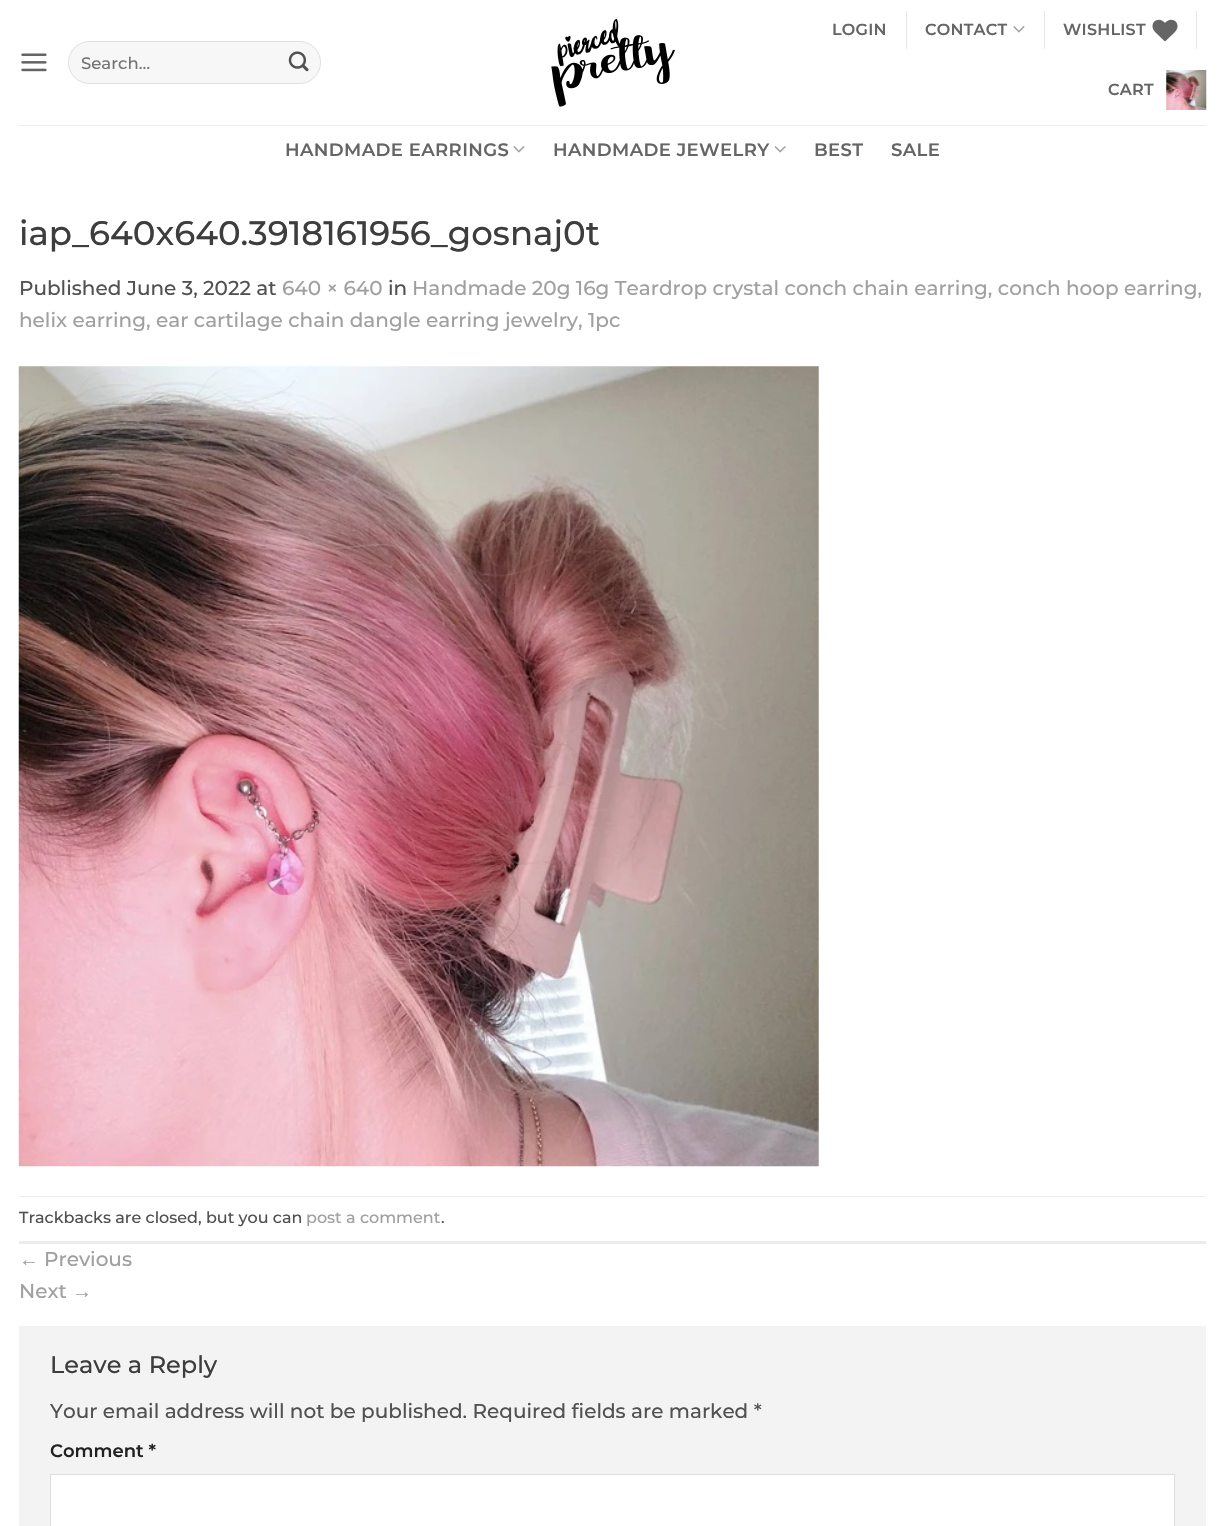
void draw(SkCanvas* canvas) {
	SkPaint paint;
	paint.setAntiAlias(true);
	auto spacedText = [&](const char* s, float x, float y, const SkFont& font, const SkPaint& ink, float letter, float word) {
		std::vector<SkGlyphID> glyphs(font.countText(s, strlen(s), SkTextEncoding::kUTF8));
		std::vector<float> xs(glyphs.size());
		font.textToGlyphs(s, strlen(s), SkTextEncoding::kUTF8, glyphs);
		font.getXPos(glyphs, xs, x);
		float extra = 0;
		for (size_t i = 0; i < glyphs.size(); i++) {
			xs[i] += extra;
			extra += letter + word * (glyphs[i] == font.unicharToGlyph(' '));
		}
		canvas->drawTextBlob(SkTextBlob::MakeFromPosHGlyphs(glyphs, xs, y, font), 0, 0, ink);
	};
	canvas->clear(0xffffffff);
	canvas->drawImageRect(SkImages::DeferredFromEncodedData(SkData::MakeFromFileName("img1.png")), SkRect::MakeXYWH(21, 53, 26, 19), SkSamplingOptions());
	paint.setColor(0xfff7f7f7);
	canvas->drawRoundRect(SkRect::MakeXYWH(68, 41, 253, 43), 21.5, 21.5, paint);
	paint.setStroke(true);
	paint.setStrokeWidth(1);
	paint.setColor(0x17000000);
	canvas->drawRoundRect(SkRect::MakeXYWH(68.5, 41.5, 252, 42), 21, 21, paint);
	SkFont f1(fontMgr->matchFamilyStyle("Montserrat", SkFontStyle(500, SkFontStyle::kNormal_Width, SkFontStyle::kUpright_Slant)), 16.5);
	f1.setSubpixel(true);
	paint.setStroke(false);
	paint.setColor(0xff757575);
	canvas->drawString("Search…", 81, 69, f1, paint);
	canvas->drawImageRect(SkImages::DeferredFromEncodedData(SkData::MakeFromFileName("img2.png")), SkRect::MakeXYWH(288, 51, 21, 21), SkSamplingOptions());
	canvas->drawImageRect(SkImages::DeferredFromEncodedData(SkData::MakeFromFileName("img3.png")), SkRect::MakeXYWH(551, 19, 124, 88), SkSamplingOptions());
	SkFont f2(fontMgr->matchFamilyStyle("Montserrat", SkFontStyle(600, SkFontStyle::kNormal_Width, SkFontStyle::kUpright_Slant)), 16);
	f2.setSubpixel(true);
	paint.setColor(0xff656565);
	spacedText("LOGIN", 832, 35, f2, paint, 0.25, 0);
	paint.setColor(0xffe6e6e6);
	canvas->drawRect(SkRect::MakeXYWH(906, 11, 1, 38), paint);
	paint.setColor(0xff656565);
	spacedText("CONTACT", 925, 35, f2, paint, 0.25, 0);
	canvas->drawImageRect(SkImages::DeferredFromEncodedData(SkData::MakeFromFileName("img4.png")), SkRect::MakeXYWH(1013, 26, 12, 7), SkSamplingOptions());
	paint.setColor(0xffe6e6e6);
	canvas->drawRect(SkRect::MakeXYWH(1044, 11, 1, 38), paint);
	paint.setColor(0xff656565);
	spacedText("WISHLIST", 1063, 35, f2, paint, 0.25, 0);
	canvas->drawImageRect(SkImages::DeferredFromEncodedData(SkData::MakeFromFileName("img5.png")), SkRect::MakeXYWH(1152, 19, 26, 23), SkSamplingOptions());
	paint.setColor(0xffe6e6e6);
	canvas->drawRect(SkRect::MakeXYWH(1196, 11, 1, 38), paint);
	paint.setColor(0xff656565);
	spacedText("CART", 1108, 95, f2, paint, 0.25, 0);
	canvas->drawImageRect(SkImages::DeferredFromEncodedData(SkData::MakeFromFileName("img6.png")), SkRect::MakeXYWH(1166, 70, 41, 40), SkSamplingOptions());
	paint.setColor(0xffeeeeee);
	canvas->drawRect(SkRect::MakeXYWH(19, 125, 1187, 1), paint);
	SkFont f3(fontMgr->matchFamilyStyle("Montserrat", SkFontStyle(600, SkFontStyle::kNormal_Width, SkFontStyle::kUpright_Slant)), 18);
	f3.setSubpixel(true);
	paint.setColor(0xff656565);
	spacedText("HANDMADE EARRINGS", 285, 156, f3, paint, 0.4, 0);
	canvas->drawImageRect(SkImages::DeferredFromEncodedData(SkData::MakeFromFileName("img4.png")), SkRect::MakeXYWH(513, 146, 12, 7), SkSamplingOptions());
	spacedText("HANDMADE JEWELRY", 553, 156, f3, paint, 0.4, 0);
	canvas->drawImageRect(SkImages::DeferredFromEncodedData(SkData::MakeFromFileName("img7.png")), SkRect::MakeXYWH(774, 146, 12, 7), SkSamplingOptions());
	spacedText("BEST", 814, 156, f3, paint, 0.4, 0);
	spacedText("SALE", 891, 156, f3, paint, 0.4, 0);
	SkFont f4(fontMgr->matchFamilyStyle("Montserrat", SkFontStyle(500, SkFontStyle::kNormal_Width, SkFontStyle::kUpright_Slant)), 34);
	f4.setSubpixel(true);
	paint.setColor(0xff3d3d3d);
	canvas->drawString("iap_640x640.3918161956_gosnaj0t", 19, 245, f4, paint);
	SkFont f5(fontMgr->matchFamilyStyle("Montserrat", SkFontStyle(500, SkFontStyle::kNormal_Width, SkFontStyle::kUpright_Slant)), 20);
	f5.setSubpixel(true);
	paint.setColor(0xff515151);
	canvas->drawString("Published June 3, 2022 at", 19, 295, f5, paint);
	paint.setColor(0xffa0a0a0);
	canvas->drawString("640 × 640", 282, 295, f5, paint);
	paint.setColor(0xff515151);
	canvas->drawString("in", 388, 295, f5, paint);
	paint.setColor(0xffa0a0a0);
	canvas->drawString("Handmade 20g 16g Teardrop crystal conch chain earring, conch hoop earring,", 412, 295, f5, paint);
	canvas->drawString("helix earring, ear cartilage chain dangle earring jewelry, 1pc", 19, 327, f5, paint);
	canvas->drawImageRect(SkImages::DeferredFromEncodedData(SkData::MakeFromFileName("img8.png")), SkRect::MakeXYWH(18, 366, 801, 801), SkSamplingOptions());
	paint.setColor(0xffececec);
	canvas->drawRect(SkRect::MakeXYWH(19, 1196, 1187, 1), paint);
	canvas->drawRect(SkRect::MakeXYWH(19, 1241, 1187, 3), paint);
	SkFont f6(fontMgr->matchFamilyStyle("Montserrat", SkFontStyle(500, SkFontStyle::kNormal_Width, SkFontStyle::kUpright_Slant)), 16);
	f6.setSubpixel(true);
	paint.setColor(0xff515151);
	canvas->drawString("Trackbacks are closed, but you can", 19, 1223, f6, paint);
	paint.setColor(0xffa0a0a0);
	canvas->drawString("post a comment", 306, 1223, f6, paint);
	paint.setColor(0xff515151);
	canvas->drawString(".", 441, 1223, f6, paint);
	SkFont f7(fontMgr->matchFamilyStyle("Liberation Sans", SkFontStyle::Normal()), 20);
	f7.setSubpixel(true);
	paint.setColor(0xffa0a0a0);
	canvas->drawString("←", 19, 1266, f7, paint);
	canvas->drawString("Previous", 44, 1266, f5, paint);
	canvas->drawString("Next", 19, 1298, f5, paint);
	canvas->drawString("→", 72, 1298, f7, paint);
	paint.setColor(0xfff3f3f3);
	canvas->drawRect(SkRect::MakeXYWH(19, 1326, 1187, 200), paint);
	SkFont f8(fontMgr->matchFamilyStyle("Montserrat", SkFontStyle(500, SkFontStyle::kNormal_Width, SkFontStyle::kUpright_Slant)), 24);
	f8.setSubpixel(true);
	paint.setColor(0xff3d3d3d);
	canvas->drawString("Leave a Reply", 50, 1373, f8, paint);
	paint.setColor(0xff515151);
	canvas->drawString("Your email address will not be published. Required fields are marked *", 50, 1418, f5, paint);
	paint.setColor(0xff222222);
	canvas->drawString("Comment *", 50, 1457, f3, paint);
	paint.setColor(0xffffffff);
	canvas->drawRect(SkRect::MakeXYWH(50.5, 1474.5, 1124, 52), paint);
	paint.setStroke(true);
	paint.setColor(0xffdddddd);
	canvas->drawRect(SkRect::MakeXYWH(50.5, 1474.5, 1124, 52), paint);
}
